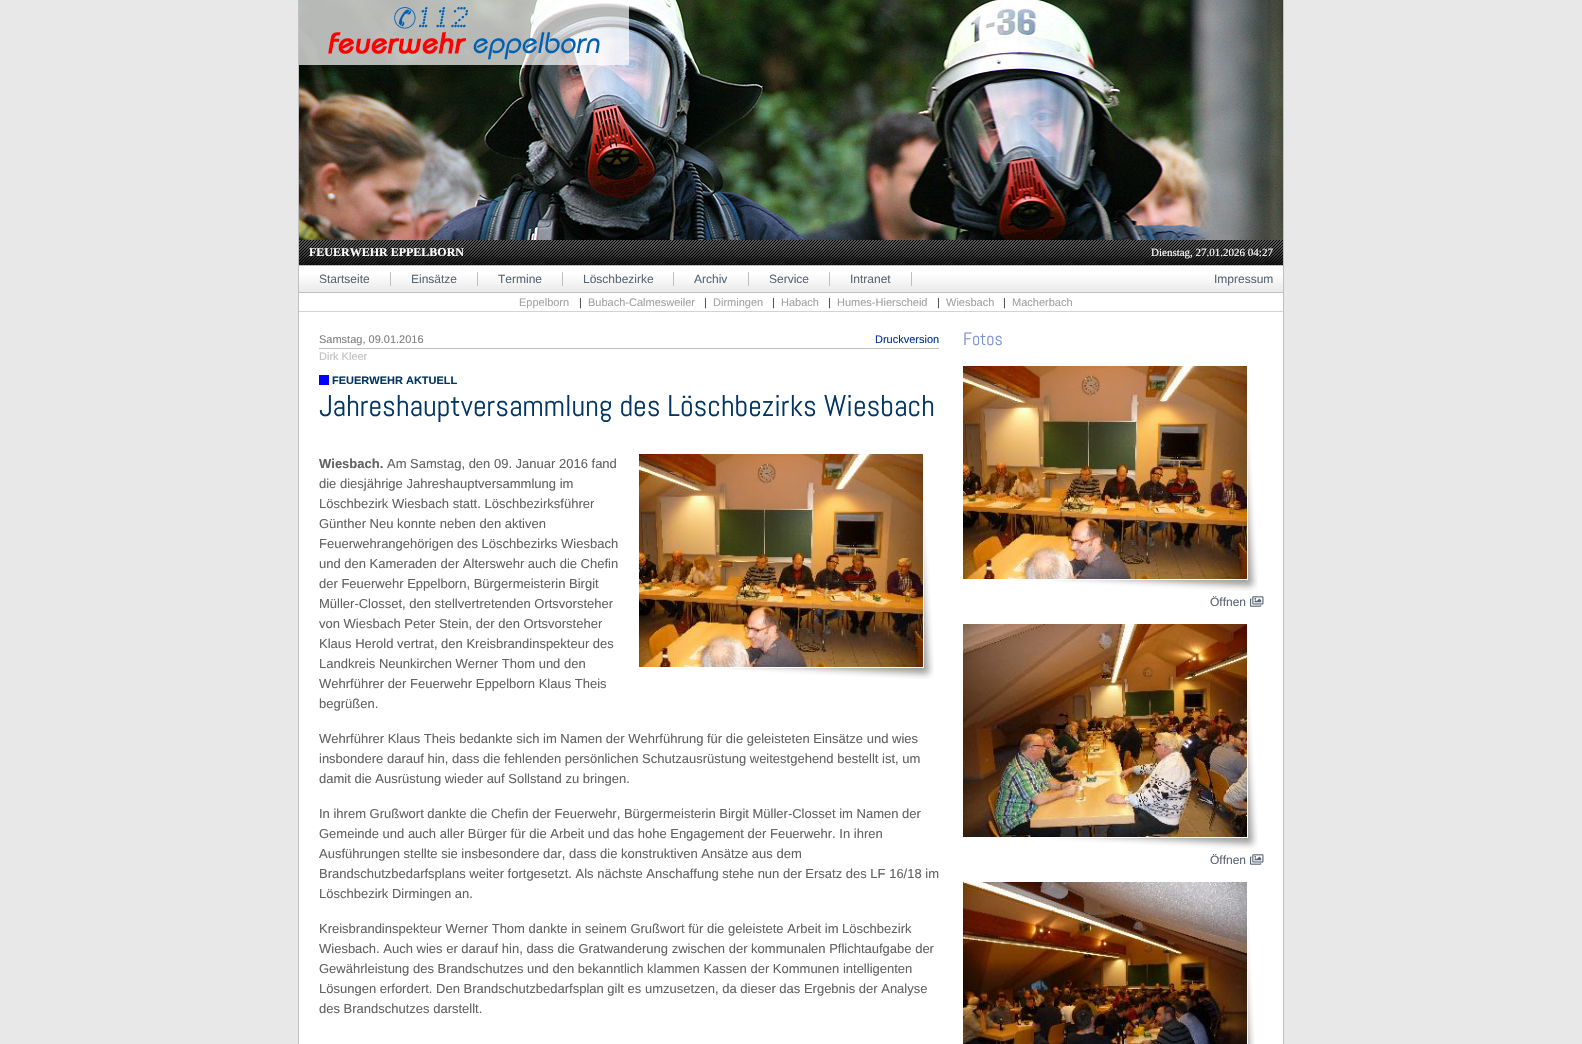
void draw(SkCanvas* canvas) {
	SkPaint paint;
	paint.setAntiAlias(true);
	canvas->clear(0xffe8e8e8);
	paint.setColor(0xffffffff);
	canvas->drawRect(SkRect::MakeXYWH(299, 293, 984, 751), paint);
	paint.setColor(0xffc0c0c0);
	canvas->drawRect(SkRect::MakeXYWH(1283, 0, 1, 1044), paint);
	canvas->drawRect(SkRect::MakeXYWH(298, 0, 1, 1044), paint);
	canvas->drawImageRect(SkImages::DeferredFromEncodedData(SkData::MakeFromFileName("img1.png")), SkRect::MakeXYWH(299, 0, 984, 240), SkSamplingOptions());
	paint.setColor(0xb3ffffff);
	canvas->drawRect(SkRect::MakeXYWH(299, 0, 330, 65), paint);
	canvas->drawImageRect(SkImages::DeferredFromEncodedData(SkData::MakeFromFileName("img2.png")), SkRect::MakeXYWH(328, 7, 272, 53), SkSamplingOptions());
	canvas->drawImageRect(SkImages::DeferredFromEncodedData(SkData::MakeFromFileName("img3.png")), SkRect::MakeXYWH(299, 240, 984, 25), SkSamplingOptions());
	SkFont f1(fontMgr->matchFamilyStyle("Liberation Serif", SkFontStyle::Bold()), 12);
	f1.setSubpixel(true);
	paint.setColor(0xffffffff);
	canvas->drawString("FEUERWEHR EPPELBORN", 309, 256, f1, paint);
	SkFont f2(fontMgr->matchFamilyStyle("Liberation Serif", SkFontStyle::Normal()), 11);
	f2.setSubpixel(true);
	canvas->drawString("Dienstag, 27.01.2026 04:27", 1151, 256, f2, paint);
	canvas->drawImageRect(SkImages::DeferredFromEncodedData(SkData::MakeFromFileName("img4.png")), SkRect::MakeXYWH(299, 266, 984, 26), SkSamplingOptions());
	paint.setColor(0xffc0c0c0);
	canvas->drawRect(SkRect::MakeXYWH(299, 265, 984, 1), paint);
	canvas->drawRect(SkRect::MakeXYWH(299, 292, 984, 1), paint);
	canvas->drawRect(SkRect::MakeXYWH(390, 272, 1, 14), paint);
	SkFont f3(fontMgr->matchFamilyStyle("Liberation Sans", SkFontStyle::Normal()), 12);
	f3.setSubpixel(true);
	paint.setColor(0xff596575);
	canvas->drawString("Startseite", 319, 283, f3, paint);
	paint.setColor(0xffc0c0c0);
	canvas->drawRect(SkRect::MakeXYWH(477, 272, 1, 14), paint);
	paint.setColor(0xff596575);
	canvas->drawString("Einsätze", 411, 283, f3, paint);
	paint.setColor(0xffc0c0c0);
	canvas->drawRect(SkRect::MakeXYWH(562, 272, 1, 14), paint);
	paint.setColor(0xff596575);
	canvas->drawString("Termine", 498, 283, f3, paint);
	paint.setColor(0xffc0c0c0);
	canvas->drawRect(SkRect::MakeXYWH(673, 272, 1, 14), paint);
	paint.setColor(0xff596575);
	canvas->drawString("Löschbezirke", 583, 283, f3, paint);
	paint.setColor(0xffc0c0c0);
	canvas->drawRect(SkRect::MakeXYWH(748, 272, 1, 14), paint);
	paint.setColor(0xff596575);
	canvas->drawString("Archiv", 694, 283, f3, paint);
	paint.setColor(0xffc0c0c0);
	canvas->drawRect(SkRect::MakeXYWH(829, 272, 1, 14), paint);
	paint.setColor(0xff596575);
	canvas->drawString("Service", 769, 283, f3, paint);
	paint.setColor(0xffc0c0c0);
	canvas->drawRect(SkRect::MakeXYWH(911, 272, 1, 14), paint);
	paint.setColor(0xff596575);
	canvas->drawString("Intranet", 850, 283, f3, paint);
	canvas->drawString("Impressum", 1214, 283, f3, paint);
	paint.setColor(0xffd3d3d3);
	canvas->drawRect(SkRect::MakeXYWH(299, 311, 984, 1), paint);
	SkFont f4(fontMgr->matchFamilyStyle("Liberation Sans", SkFontStyle::Normal()), 11);
	f4.setSubpixel(true);
	paint.setColor(0xffa2a2a2);
	canvas->drawString("Eppelborn", 519, 306, f4, paint);
	paint.setColor(0xff444444);
	canvas->drawString("|", 579, 306, f4, paint);
	paint.setColor(0xffa2a2a2);
	canvas->drawString("Bubach-Calmesweiler", 588, 306, f4, paint);
	paint.setColor(0xff444444);
	canvas->drawString("|", 704, 306, f4, paint);
	paint.setColor(0xffa2a2a2);
	canvas->drawString("Dirmingen", 713, 306, f4, paint);
	paint.setColor(0xff444444);
	canvas->drawString("|", 772, 306, f4, paint);
	paint.setColor(0xffa2a2a2);
	canvas->drawString("Habach", 781, 306, f4, paint);
	paint.setColor(0xff444444);
	canvas->drawString("|", 828, 306, f4, paint);
	paint.setColor(0xffa2a2a2);
	canvas->drawString("Humes-Hierscheid", 837, 306, f4, paint);
	paint.setColor(0xff444444);
	canvas->drawString("|", 937, 306, f4, paint);
	paint.setColor(0xffa2a2a2);
	canvas->drawString("Wiesbach", 946, 306, f4, paint);
	paint.setColor(0xff444444);
	canvas->drawString("|", 1003, 306, f4, paint);
	paint.setColor(0xffa2a2a2);
	canvas->drawString("Macherbach", 1012, 306, f4, paint);
	paint.setColor(0xffc0c0c0);
	canvas->drawRect(SkRect::MakeXYWH(319, 348, 620, 1), paint);
	paint.setColor(0xff808080);
	canvas->drawString("Samstag, 09.01.2016", 319, 343, f4, paint);
	paint.setColor(0xff003399);
	canvas->drawString("Druckversion", 875, 343, f4, paint);
	paint.setColor(0xffc0c0c0);
	canvas->drawString("Dirk Kleer", 319, 360, f4, paint);
	paint.setColor(0xff0000ff);
	canvas->drawRect(SkRect::MakeXYWH(319, 375, 10, 10), paint);
	SkFont f5(fontMgr->matchFamilyStyle("Liberation Sans", SkFontStyle::Bold()), 11);
	f5.setSubpixel(true);
	paint.setColor(0xff013564);
	canvas->drawString("FEUERWEHR AKTUELL", 332, 384, f5, paint);
	SkFont f6(fontMgr->matchFamilyStyle("Abel", SkFontStyle::Normal()), 30);
	f6.setSubpixel(true);
	canvas->drawString("Jahreshauptversammlung des Löschbezirks Wiesbach", 319, 416, f6, paint);
	SkFont f7(fontMgr->matchFamilyStyle("Liberation Sans", SkFontStyle::Bold()), 13);
	f7.setSubpixel(true);
	paint.setColor(0xff626262);
	canvas->drawString("Wiesbach.", 319, 468, f7, paint);
	SkFont f8(fontMgr->matchFamilyStyle("Liberation Sans", SkFontStyle::Normal()), 13);
	f8.setSubpixel(true);
	canvas->drawString("Am Samstag, den 09. Januar 2016 fand", 387, 468, f8, paint);
	canvas->drawImageRect(SkImages::DeferredFromEncodedData(SkData::MakeFromFileName("img5.png")), SkRect::MakeXYWH(639, 454, 295, 225), SkSamplingOptions());
	canvas->drawString("die diesjährige Jahreshauptversammlung im", 319, 488, f8, paint);
	canvas->drawString("Löschbezirk Wiesbach statt. Löschbezirksführer", 319, 508, f8, paint);
	canvas->drawString("Günther Neu konnte neben den aktiven", 319, 528, f8, paint);
	canvas->drawString("Feuerwehrangehörigen des Löschbezirks Wiesbach", 319, 548, f8, paint);
	canvas->drawString("und den Kameraden der Alterswehr auch die Chefin", 319, 568, f8, paint);
	canvas->drawString("der Feuerwehr Eppelborn, Bürgermeisterin Birgit", 319, 588, f8, paint);
	canvas->drawString("Müller-Closset, den stellvertretenden Ortsvorsteher", 319, 608, f8, paint);
	canvas->drawString("von Wiesbach Peter Stein, der den Ortsvorsteher", 319, 628, f8, paint);
	canvas->drawString("Klaus Herold vertrat, den Kreisbrandinspekteur des", 319, 648, f8, paint);
	canvas->drawString("Landkreis Neunkirchen Werner Thom und den", 319, 668, f8, paint);
	canvas->drawString("Wehrführer der Feuerwehr Eppelborn Klaus Theis", 319, 688, f8, paint);
	canvas->drawString("begrüßen.", 319, 708, f8, paint);
	canvas->drawString("Wehrführer Klaus Theis bedankte sich im Namen der Wehrführung für die geleisteten Einsätze und wies", 319, 743, f8, paint);
	canvas->drawString("insbondere darauf hin, dass die fehlenden persönlichen Schutzausrüstung weitestgehend bestellt ist, um", 319, 763, f8, paint);
	canvas->drawString("damit die Ausrüstung wieder auf Sollstand zu bringen.", 319, 783, f8, paint);
	canvas->drawString("In ihrem Grußwort dankte die Chefin der Feuerwehr, Bürgermeisterin Birgit Müller-Closset im Namen der", 319, 818, f8, paint);
	canvas->drawString("Gemeinde und auch aller Bürger für die Arbeit und das hohe Engagement der Feuerwehr. In ihren", 319, 838, f8, paint);
	canvas->drawString("Ausführungen stellte sie insbesondere dar, dass die konstruktiven Ansätze aus dem", 319, 858, f8, paint);
	canvas->drawString("Brandschutzbedarfsplans weiter fortgesetzt. Als nächste Anschaffung stehe nun der Ersatz des LF 16/18 im", 319, 878, f8, paint);
	canvas->drawString("Löschbezirk Dirmingen an.", 319, 898, f8, paint);
	canvas->drawString("Kreisbrandinspekteur Werner Thom dankte in seinem Grußwort für die geleistete Arbeit im Löschbezirk", 319, 933, f8, paint);
	canvas->drawString("Wiesbach. Auch wies er darauf hin, dass die Gratwanderung zwischen der kommunalen Pflichtaufgabe der", 319, 953, f8, paint);
	canvas->drawString("Gewährleistung des Brandschutzes und den bekanntlich klammen Kassen der Kommunen intelligenten", 319, 973, f8, paint);
	canvas->drawString("Lösungen erfordert. Den Brandschutzbedarfsplan gilt es umzusetzen, da dieser das Ergebnis der Analyse", 319, 993, f8, paint);
	canvas->drawString("des Brandschutzes darstellt.", 319, 1013, f8, paint);
	SkFont f9(fontMgr->matchFamilyStyle("Abel", SkFontStyle::Normal()), 18);
	f9.setSubpixel(true);
	paint.setColor(0xff7992d3);
	canvas->drawString("Fotos", 963, 345, f9, paint);
	canvas->drawImageRect(SkImages::DeferredFromEncodedData(SkData::MakeFromFileName("img5.png")), SkRect::MakeXYWH(963, 366, 295, 225), SkSamplingOptions());
	paint.setColor(0xff596575);
	canvas->drawString("Öffnen", 1210, 606, f3, paint);
	canvas->drawImageRect(SkImages::DeferredFromEncodedData(SkData::MakeFromFileName("img6.png")), SkRect::MakeXYWH(1250, 596, 14, 11), SkSamplingOptions());
	canvas->drawImageRect(SkImages::DeferredFromEncodedData(SkData::MakeFromFileName("img7.png")), SkRect::MakeXYWH(963, 624, 295, 225), SkSamplingOptions());
	canvas->drawString("Öffnen", 1210, 864, f3, paint);
	canvas->drawImageRect(SkImages::DeferredFromEncodedData(SkData::MakeFromFileName("img6.png")), SkRect::MakeXYWH(1250, 854, 14, 11), SkSamplingOptions());
	canvas->drawImageRect(SkImages::DeferredFromEncodedData(SkData::MakeFromFileName("img8.png")), SkRect::MakeXYWH(963, 882, 292, 162), SkSamplingOptions());
}
